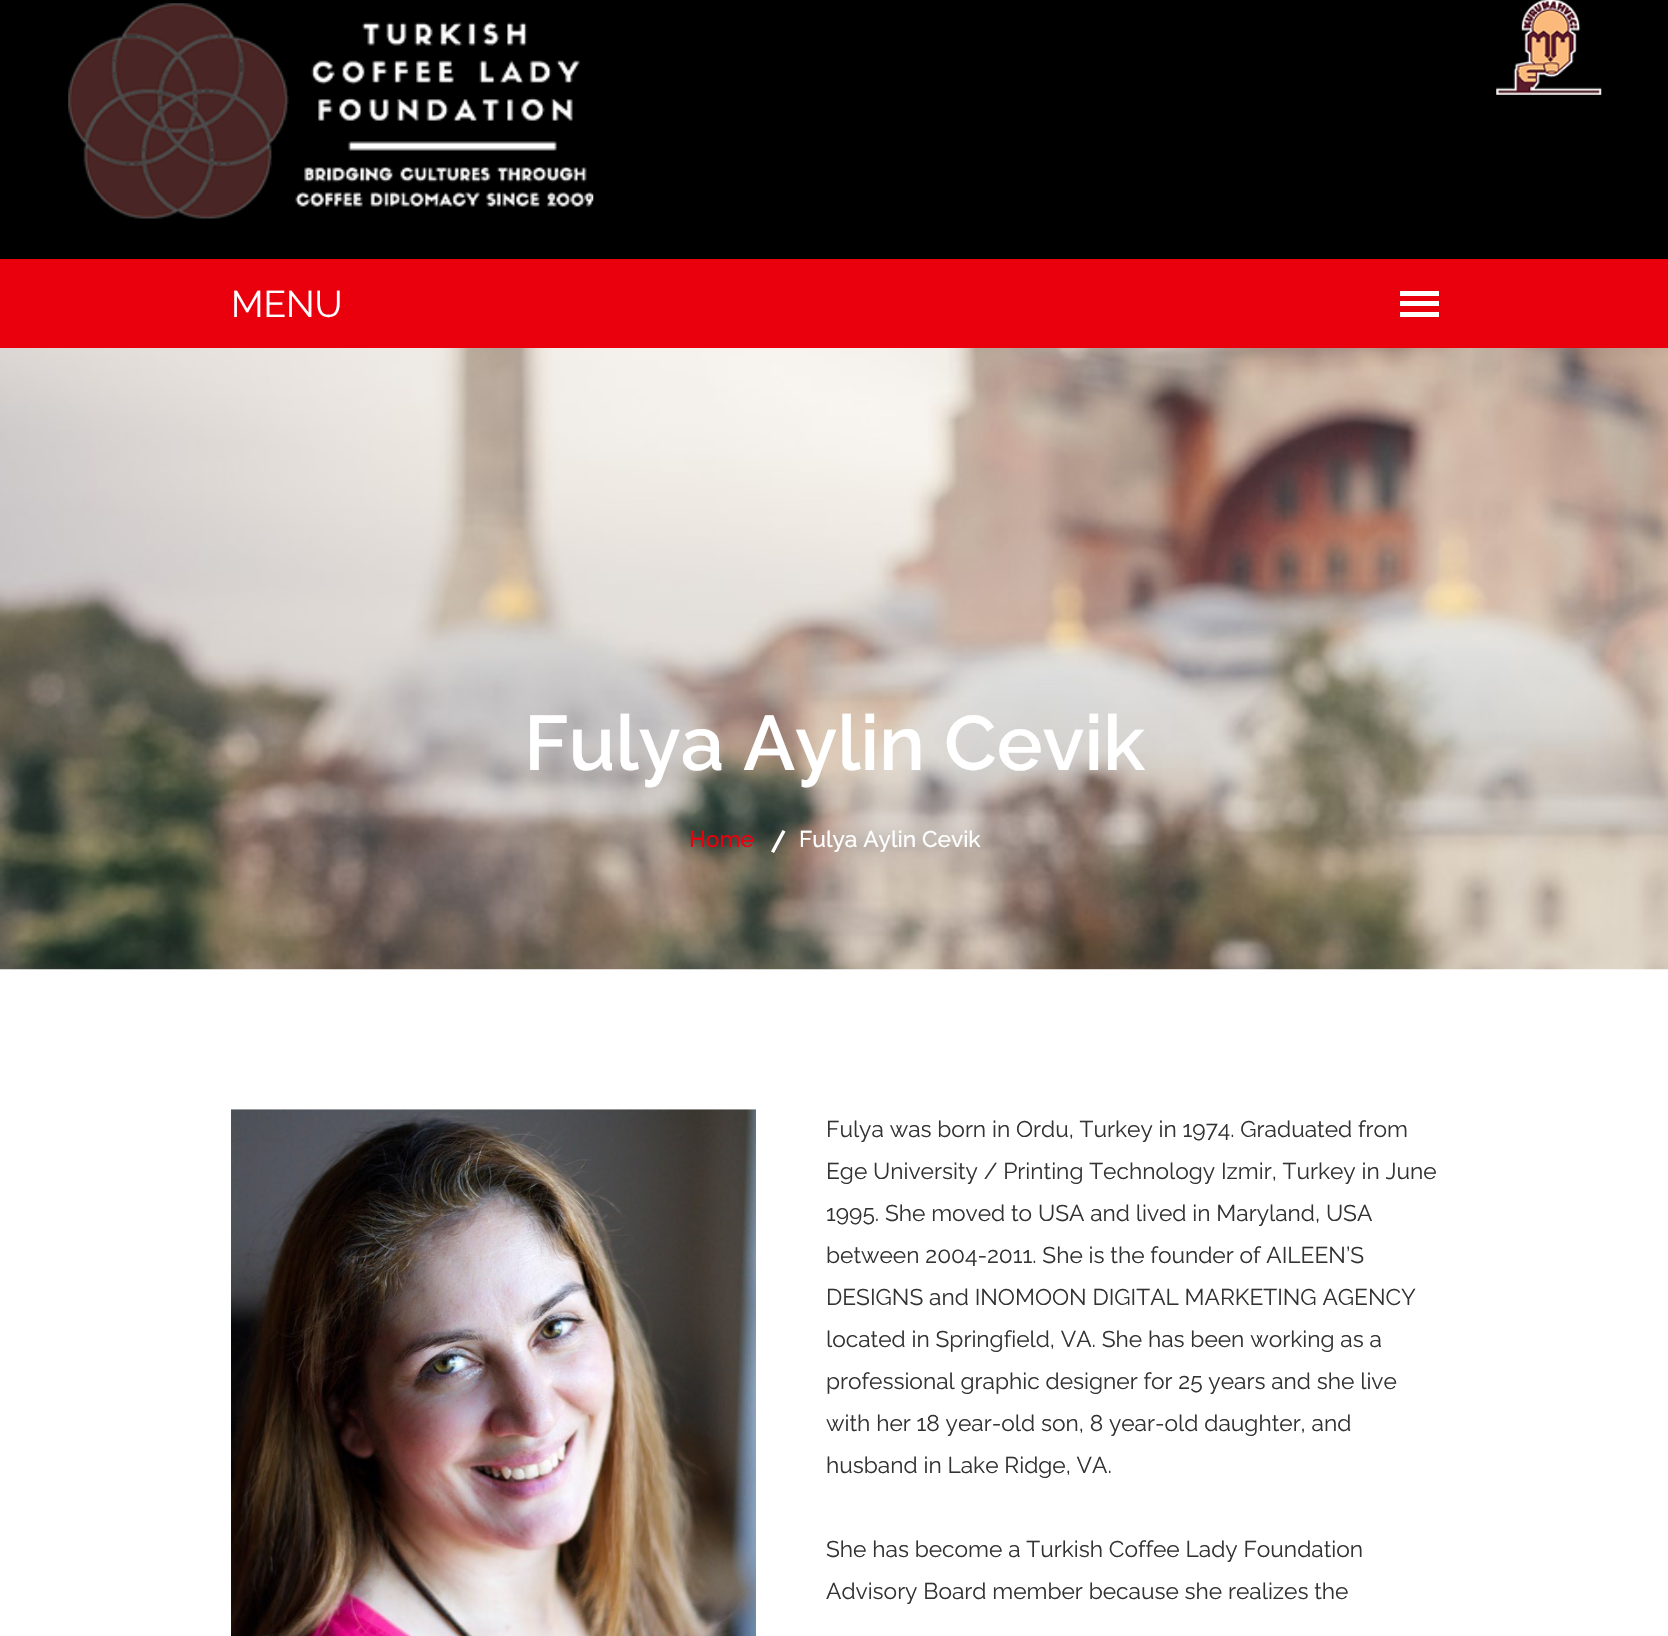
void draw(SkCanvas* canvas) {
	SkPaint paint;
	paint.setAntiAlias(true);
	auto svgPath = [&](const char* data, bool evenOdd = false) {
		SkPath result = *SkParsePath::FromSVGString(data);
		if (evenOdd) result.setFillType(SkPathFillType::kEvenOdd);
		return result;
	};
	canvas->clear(0xffffffff);
	paint.setColor(0xff000000);
	canvas->drawRect(SkRect::MakeXYWH(0, 0, 1668, 259), paint);
	canvas->drawImageRect(SkImages::DeferredFromEncodedData(SkData::MakeFromFileName("img1.png")), SkRect::MakeXYWH(68, 3, 526, 216), SkSamplingOptions());
	canvas->drawImageRect(SkImages::DeferredFromEncodedData(SkData::MakeFromFileName("img2.png")), SkRect::MakeXYWH(1496, 0, 106, 95), SkSamplingOptions());
	paint.setColor(0xffea000d);
	canvas->drawRect(SkRect::MakeXYWH(0, 259, 1668, 89), paint);
	SkFont f1(fontMgr->matchFamilyStyle("Raleway", SkFontStyle::Normal()), 37);
	f1.setSubpixel(true);
	paint.setColor(0xffffffff);
	canvas->drawString("MENU", 231, 317, f1, paint);
	canvas->drawRect(SkRect::MakeXYWH(1400, 291, 39, 5), paint);
	canvas->drawRect(SkRect::MakeXYWH(1400, 301, 39, 5), paint);
	canvas->drawRect(SkRect::MakeXYWH(1400, 312, 39, 5), paint);
	canvas->drawImageRect(SkImages::DeferredFromEncodedData(SkData::MakeFromFileName("img3.png")), SkRect::MakeXYWH(0, 348, 1668, 622), SkSamplingOptions());
	SkFont f2(fontMgr->matchFamilyStyle("Raleway", SkFontStyle(600, SkFontStyle::kNormal_Width, SkFontStyle::kUpright_Slant)), 77);
	f2.setSubpixel(true);
	canvas->drawString("Fulya Aylin Cevik", 524, 770, f2, paint);
	SkFont f3(fontMgr->matchFamilyStyle("Raleway", SkFontStyle(500, SkFontStyle::kNormal_Width, SkFontStyle::kUpright_Slant)), 22.75);
	f3.setSubpixel(true);
	paint.setColor(0xffea000d);
	canvas->drawString("Home", 689, 847, f3, paint);
	paint.setColor(0xffffffff);
	canvas->drawPath(svgPath("M771 851.5L782.5 830L785.5 831.5L774 853Z"), paint);
	canvas->drawString("Fulya Aylin Cevik", 799, 847, f3, paint);
	canvas->drawImageRect(SkImages::DeferredFromEncodedData(SkData::MakeFromFileName("img4.png")), SkRect::MakeXYWH(231, 1109, 525, 527), SkSamplingOptions());
	SkFont f4(fontMgr->matchFamilyStyle("Raleway", SkFontStyle::Normal()), 22.75);
	f4.setSubpixel(true);
	paint.setColor(0xff333333);
	canvas->drawString("Fulya was born in Ordu, Turkey in 1974. Graduated from", 826, 1137, f4, paint);
	canvas->drawString("Ege University / Printing Technology Izmir, Turkey in June", 826, 1179, f4, paint);
	canvas->drawString("1995. She moved to USA and lived in Maryland, USA", 826, 1221, f4, paint);
	canvas->drawString("between 2004-2011. She is the founder of AILEEN’S", 826, 1263, f4, paint);
	canvas->drawString("DESIGNS and INOMOON DIGITAL MARKETING AGENCY", 826, 1305, f4, paint);
	canvas->drawString("located in Springfield, VA. She has been working as a", 826, 1347, f4, paint);
	canvas->drawString("professional graphic designer for 25 years and she live", 826, 1389, f4, paint);
	canvas->drawString("with her 18 year-old son, 8 year-old daughter, and", 826, 1431, f4, paint);
	canvas->drawString("husband in Lake Ridge, VA.", 826, 1473, f4, paint);
	canvas->drawString("She has become a Turkish Coffee Lady Foundation", 826, 1557, f4, paint);
	canvas->drawString("Advisory Board member because she realizes the", 826, 1599, f4, paint);
}
